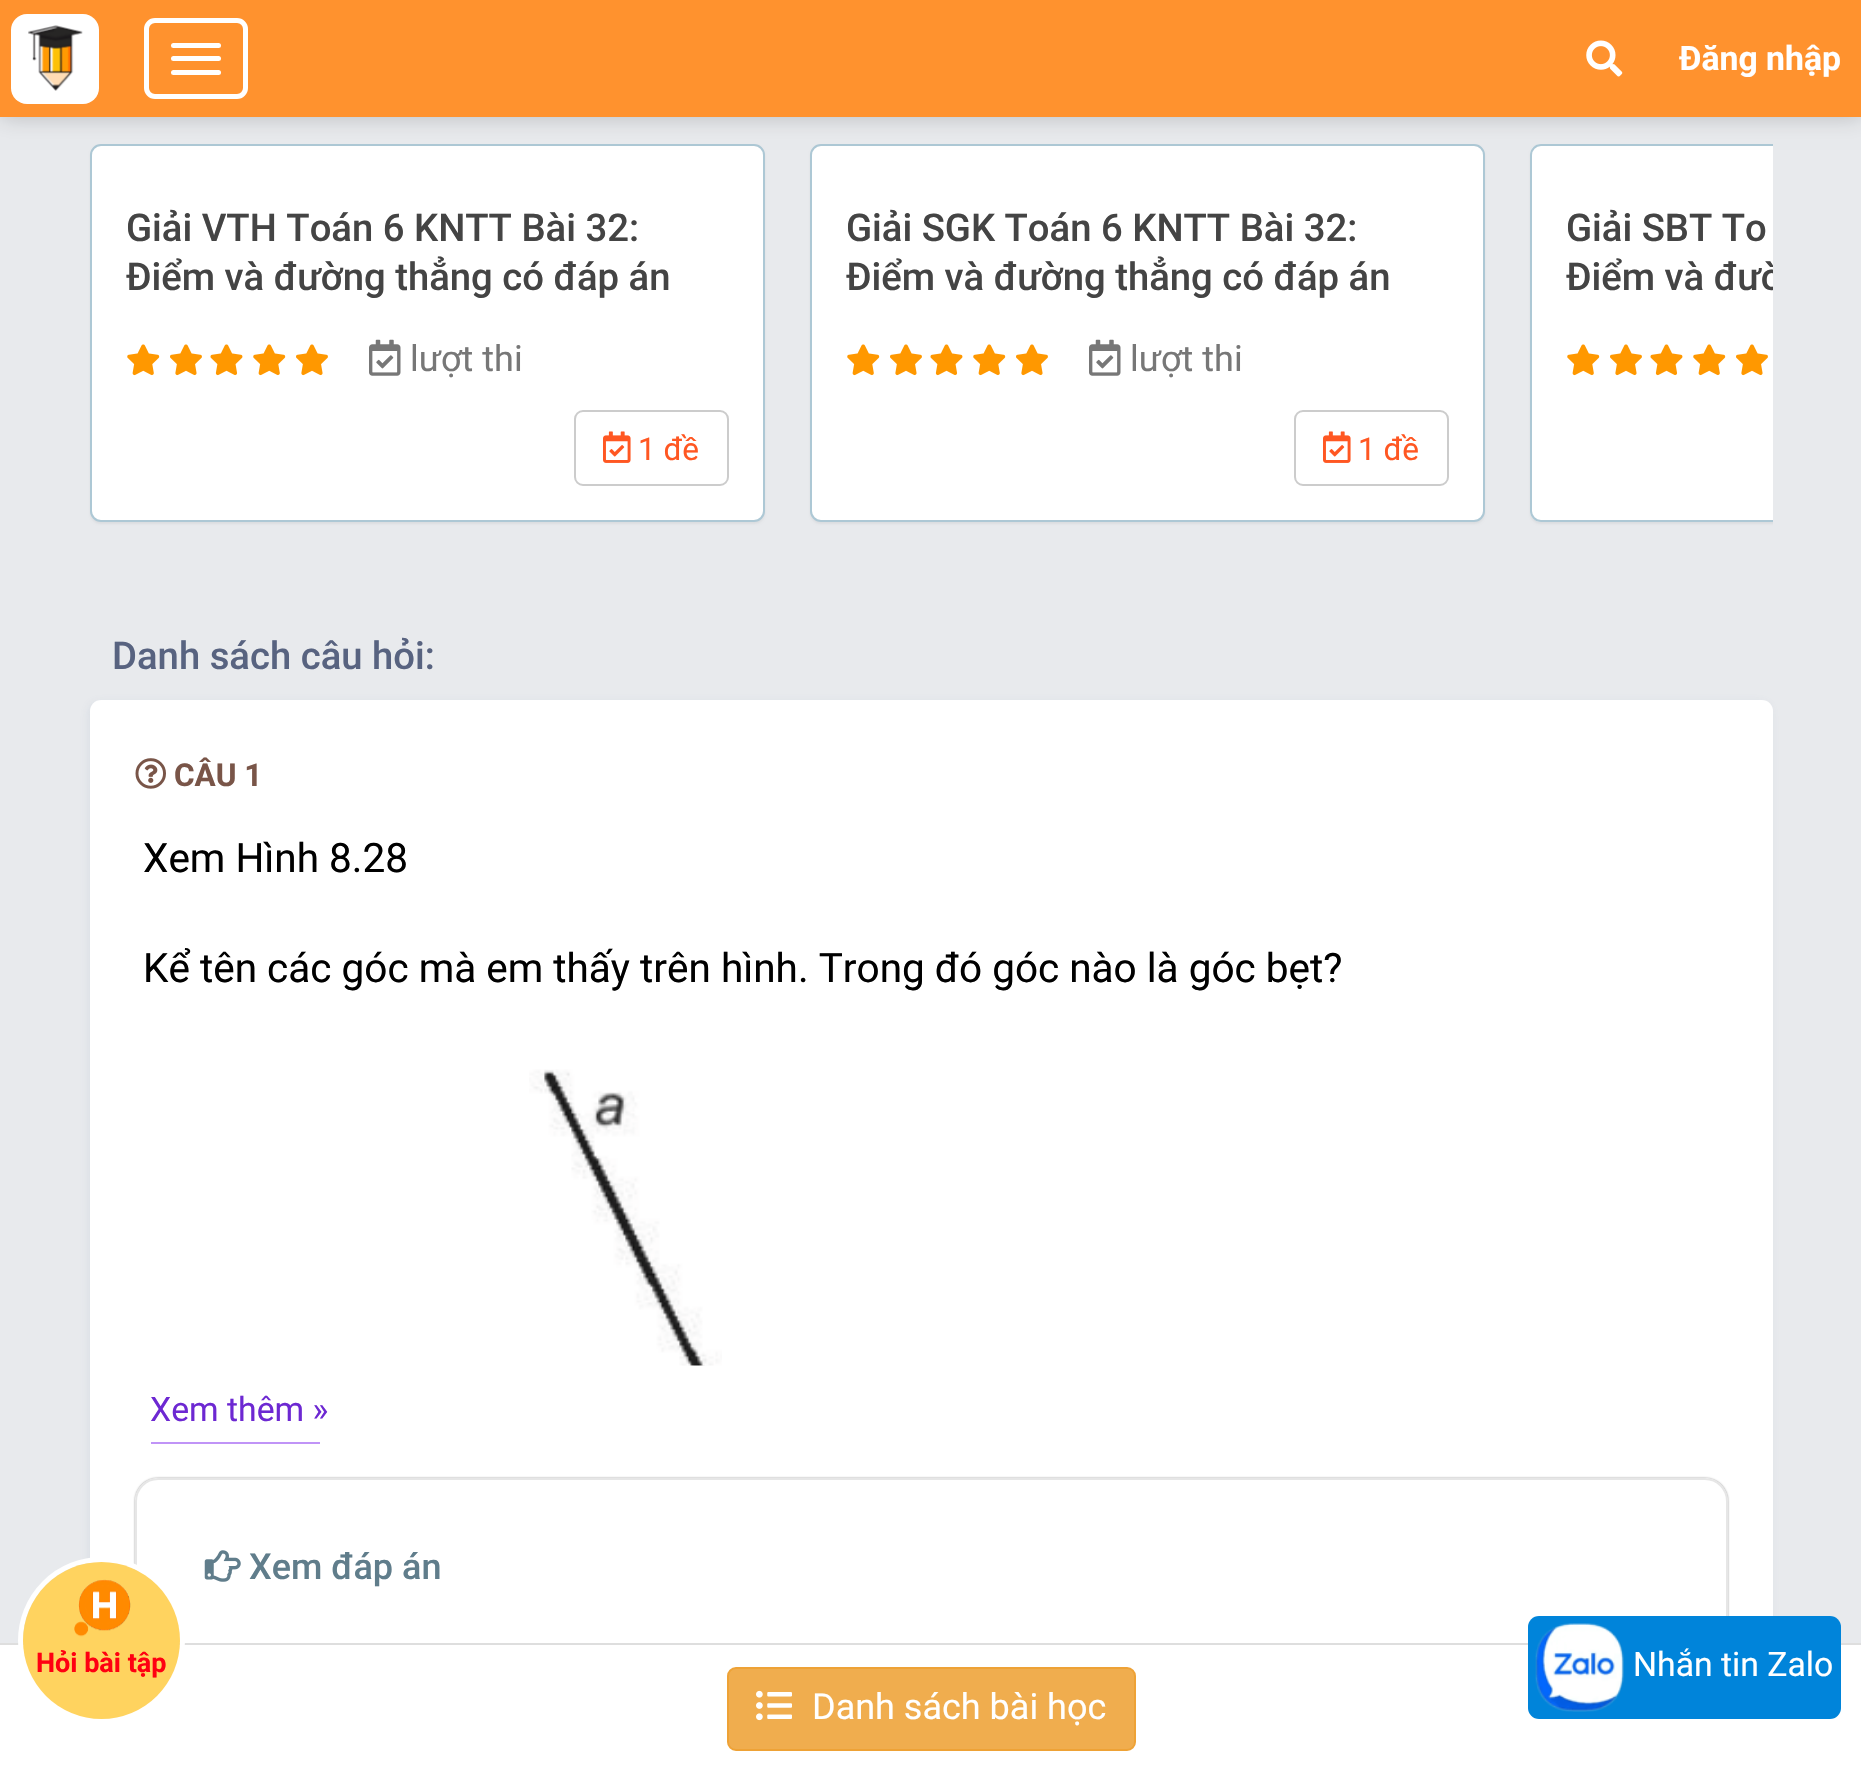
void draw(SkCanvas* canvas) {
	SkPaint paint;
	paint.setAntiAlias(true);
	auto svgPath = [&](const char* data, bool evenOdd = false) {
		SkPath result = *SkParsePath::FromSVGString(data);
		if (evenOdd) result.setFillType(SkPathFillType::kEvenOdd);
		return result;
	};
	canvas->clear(0xffe8eaed);
	paint.setColor(0x0d000000);
	paint.setMaskFilter(SkMaskFilter::MakeBlur(kNormal_SkBlurStyle, 1));
	canvas->drawRoundRect(SkRect::MakeXYWH(90, 146, 675, 378), 11, 11, paint);
	paint.setMaskFilter(nullptr);
	paint.setColor(0xffffffff);
	canvas->drawRoundRect(SkRect::MakeXYWH(91, 145, 673, 376), 10, 10, paint);
	paint.setStroke(true);
	paint.setStrokeWidth(2);
	paint.setColor(0xffadc8d5);
	canvas->drawRoundRect(SkRect::MakeXYWH(91, 145, 673, 376), 10, 10, paint);
	paint.setStroke(false);
	paint.setColor(0x0d000000);
	paint.setMaskFilter(SkMaskFilter::MakeBlur(kNormal_SkBlurStyle, 1));
	canvas->drawRoundRect(SkRect::MakeXYWH(810, 146, 675, 378), 11, 11, paint);
	paint.setMaskFilter(nullptr);
	paint.setColor(0xffffffff);
	canvas->drawRoundRect(SkRect::MakeXYWH(811, 145, 673, 376), 10, 10, paint);
	paint.setStroke(true);
	paint.setColor(0xffadc8d5);
	canvas->drawRoundRect(SkRect::MakeXYWH(811, 145, 673, 376), 10, 10, paint);
	canvas->save();
	canvas->clipRect(SkRect::MakeXYWH(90, 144, 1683, 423));
	paint.setStroke(false);
	paint.setColor(0x0d000000);
	paint.setMaskFilter(SkMaskFilter::MakeBlur(kNormal_SkBlurStyle, 1));
	canvas->drawRoundRect(SkRect::MakeXYWH(1530, 146, 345, 378), 11, 11, paint);
	paint.setMaskFilter(nullptr);
	canvas->restore();
	paint.setColor(0xffffffff);
	canvas->drawPath(svgPath("M1541 144H1773V522H1541C1535 522 1530 517 1530 511V155C1530 149 1535 144 1541 144Z"), paint);
	canvas->save();
	canvas->clipRect(SkRect::MakeXYWH(90, 144, 1683, 423));
	paint.setStroke(true);
	paint.setColor(0xffadc8d5);
	canvas->drawRoundRect(SkRect::MakeXYWH(1531, 145, 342, 376), 10, 10, paint);
	canvas->restore();
	paint.setStroke(false);
	paint.setColor(0x33000000);
	paint.setMaskFilter(SkMaskFilter::MakeBlur(kNormal_SkBlurStyle, 11));
	canvas->drawRect(SkRect::MakeXYWH(0, 0, 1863, 117), paint);
	paint.setMaskFilter(nullptr);
	paint.setColor(0xffff922e);
	canvas->drawRect(SkRect::MakeXYWH(0, 0, 1861, 117), paint);
	paint.setColor(0xffffffff);
	canvas->drawRoundRect(SkRect::MakeXYWH(11, 14, 88, 90), 16, 16, paint);
	canvas->drawImageRect(SkImages::DeferredFromEncodedData(SkData::MakeFromFileName("img1.png")), SkRect::MakeXYWH(28, 25, 55, 66), SkSamplingOptions());
	paint.setStroke(true);
	paint.setStrokeWidth(5);
	canvas->drawRoundRect(SkRect::MakeXYWH(146.5, 20.5, 99, 76), 8.5, 8.5, paint);
	paint.setStroke(false);
	canvas->drawRoundRect(SkRect::MakeXYWH(171, 43, 50, 5), 2.5, 2.5, paint);
	canvas->drawRoundRect(SkRect::MakeXYWH(171, 56, 50, 5), 2.5, 2.5, paint);
	canvas->drawRoundRect(SkRect::MakeXYWH(171, 70, 50, 5), 2.5, 2.5, paint);
	canvas->drawImageRect(SkImages::DeferredFromEncodedData(SkData::MakeFromFileName("img2.png")), SkRect::MakeXYWH(1586, 40, 37, 37), SkSamplingOptions());
	SkFont f1(fontMgr->matchFamilyStyle("Roboto", SkFontStyle::Bold()), 33.75);
	f1.setSubpixel(true);
	canvas->drawString("Đăng nhập", 1679, 70, f1, paint);
	SkFont f2(fontMgr->matchFamilyStyle("Roboto", SkFontStyle(500, SkFontStyle::kNormal_Width, SkFontStyle::kUpright_Slant)), 38.25);
	f2.setSubpixel(true);
	paint.setColor(0xff444444);
	canvas->drawString("Giải VTH Toán 6 KNTT Bài 32:", 126, 241, f2, paint);
	canvas->drawString("Điểm và đường thẳng có đáp án", 126, 290, f2, paint);
	canvas->drawImageRect(SkImages::DeferredFromEncodedData(SkData::MakeFromFileName("img3.png")), SkRect::MakeXYWH(127, 344, 33, 32), SkSamplingOptions());
	canvas->drawImageRect(SkImages::DeferredFromEncodedData(SkData::MakeFromFileName("img4.png")), SkRect::MakeXYWH(170, 344, 32, 32), SkSamplingOptions());
	canvas->drawImageRect(SkImages::DeferredFromEncodedData(SkData::MakeFromFileName("img5.png")), SkRect::MakeXYWH(210, 344, 33, 32), SkSamplingOptions());
	canvas->drawImageRect(SkImages::DeferredFromEncodedData(SkData::MakeFromFileName("img3.png")), SkRect::MakeXYWH(253, 344, 33, 32), SkSamplingOptions());
	canvas->drawImageRect(SkImages::DeferredFromEncodedData(SkData::MakeFromFileName("img4.png")), SkRect::MakeXYWH(296, 344, 32, 32), SkSamplingOptions());
	canvas->drawImageRect(SkImages::DeferredFromEncodedData(SkData::MakeFromFileName("img6.png")), SkRect::MakeXYWH(369, 339, 32, 37), SkSamplingOptions());
	SkFont f3(fontMgr->matchFamilyStyle("Roboto", SkFontStyle::Normal()), 36);
	f3.setSubpixel(true);
	paint.setColor(0xff777777);
	canvas->drawString("lượt thi", 410, 371, f3, paint);
	paint.setStroke(true);
	paint.setStrokeWidth(2);
	paint.setColor(0xffcccccc);
	canvas->drawRoundRect(SkRect::MakeXYWH(575, 411, 153, 74), 8, 8, paint);
	canvas->drawImageRect(SkImages::DeferredFromEncodedData(SkData::MakeFromFileName("img7.png")), SkRect::MakeXYWH(603, 431, 28, 32), SkSamplingOptions());
	SkFont f4(fontMgr->matchFamilyStyle("Roboto", SkFontStyle::Normal()), 31.5);
	f4.setSubpixel(true);
	paint.setStroke(false);
	paint.setColor(0xffff5722);
	canvas->drawString("1 đề", 638, 460, f4, paint);
	paint.setColor(0xff444444);
	canvas->drawString("Giải SGK Toán 6 KNTT Bài 32:", 846, 241, f2, paint);
	canvas->drawString("Điểm và đường thẳng có đáp án", 846, 290, f2, paint);
	canvas->drawImageRect(SkImages::DeferredFromEncodedData(SkData::MakeFromFileName("img3.png")), SkRect::MakeXYWH(847, 344, 33, 32), SkSamplingOptions());
	canvas->drawImageRect(SkImages::DeferredFromEncodedData(SkData::MakeFromFileName("img4.png")), SkRect::MakeXYWH(890, 344, 32, 32), SkSamplingOptions());
	canvas->drawImageRect(SkImages::DeferredFromEncodedData(SkData::MakeFromFileName("img5.png")), SkRect::MakeXYWH(930, 344, 33, 32), SkSamplingOptions());
	canvas->drawImageRect(SkImages::DeferredFromEncodedData(SkData::MakeFromFileName("img3.png")), SkRect::MakeXYWH(973, 344, 33, 32), SkSamplingOptions());
	canvas->drawImageRect(SkImages::DeferredFromEncodedData(SkData::MakeFromFileName("img4.png")), SkRect::MakeXYWH(1016, 344, 32, 32), SkSamplingOptions());
	canvas->drawImageRect(SkImages::DeferredFromEncodedData(SkData::MakeFromFileName("img6.png")), SkRect::MakeXYWH(1089, 339, 32, 37), SkSamplingOptions());
	paint.setColor(0xff777777);
	canvas->drawString("lượt thi", 1130, 371, f3, paint);
	paint.setStroke(true);
	paint.setColor(0xffcccccc);
	canvas->drawRoundRect(SkRect::MakeXYWH(1295, 411, 153, 74), 8, 8, paint);
	canvas->drawImageRect(SkImages::DeferredFromEncodedData(SkData::MakeFromFileName("img7.png")), SkRect::MakeXYWH(1323, 431, 28, 32), SkSamplingOptions());
	paint.setStroke(false);
	paint.setColor(0xffff5722);
	canvas->drawString("1 đề", 1358, 460, f4, paint);
	paint.setColor(0xff444444);
	canvas->drawString("Giải SBT To", 1566, 241, f2, paint);
	canvas->save();
	canvas->clipRect(SkRect::MakeXYWH(1566, 203, 207, 105));
	canvas->drawString("Điểm và đườ", 1566, 290, f2, paint);
	canvas->restore();
	canvas->drawImageRect(SkImages::DeferredFromEncodedData(SkData::MakeFromFileName("img3.png")), SkRect::MakeXYWH(1567, 344, 33, 32), SkSamplingOptions());
	canvas->drawImageRect(SkImages::DeferredFromEncodedData(SkData::MakeFromFileName("img4.png")), SkRect::MakeXYWH(1610, 344, 32, 32), SkSamplingOptions());
	canvas->drawImageRect(SkImages::DeferredFromEncodedData(SkData::MakeFromFileName("img5.png")), SkRect::MakeXYWH(1650, 344, 33, 32), SkSamplingOptions());
	canvas->drawImageRect(SkImages::DeferredFromEncodedData(SkData::MakeFromFileName("img3.png")), SkRect::MakeXYWH(1693, 344, 33, 32), SkSamplingOptions());
	canvas->drawImageRect(SkImages::DeferredFromEncodedData(SkData::MakeFromFileName("img4.png")), SkRect::MakeXYWH(1736, 344, 32, 32), SkSamplingOptions());
	paint.setColor(0xff586380);
	canvas->drawString("Danh sách câu hỏi:", 112, 669, f2, paint);
	paint.setColor(0x1f758aac);
	paint.setMaskFilter(SkMaskFilter::MakeBlur(kNormal_SkBlurStyle, 4.5));
	canvas->drawRoundRect(SkRect::MakeXYWH(88, 702, 1683, 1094), 11, 11, paint);
	paint.setMaskFilter(nullptr);
	paint.setColor(0xffffffff);
	canvas->drawRoundRect(SkRect::MakeXYWH(90, 700, 1683, 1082), 11, 11, paint);
	canvas->drawImageRect(SkImages::DeferredFromEncodedData(SkData::MakeFromFileName("img8.png")), SkRect::MakeXYWH(135, 758, 31, 31), SkSamplingOptions());
	SkFont f5(fontMgr->matchFamilyStyle("Roboto", SkFontStyle::Bold()), 31.5);
	f5.setSubpixel(true);
	paint.setColor(0xff795548);
	canvas->drawString("CÂU 1", 174, 786, f5, paint);
	SkFont f6(fontMgr->matchFamilyStyle("Roboto", SkFontStyle::Normal()), 40.5);
	f6.setSubpixel(true);
	paint.setColor(0xff000000);
	canvas->drawString("Xem Hình 8.28", 143, 872, f6, paint);
	canvas->drawString("Kể tên các góc mà em thấy trên hình. Trong đó góc nào là góc bẹt?", 143, 982, f6, paint);
	canvas->drawImageRect(SkImages::DeferredFromEncodedData(SkData::MakeFromFileName("img9.png")), SkRect::MakeXYWH(529, 1069, 193, 297), SkSamplingOptions());
	SkFont f7(fontMgr->matchFamilyStyle("Roboto", SkFontStyle::Normal()), 33.75);
	f7.setSubpixel(true);
	paint.setColor(0xff6d28d2);
	canvas->drawString("Xem thêm »", 150, 1421, f7, paint);
	paint.setColor(0xffc094f7);
	canvas->drawRect(SkRect::MakeXYWH(151, 1442, 169, 2), paint);
	canvas->save();
	canvas->clipPath(svgPath("M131 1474H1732V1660H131ZM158 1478H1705C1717.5 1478 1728 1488.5 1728 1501V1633C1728 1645.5 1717.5 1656 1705 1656H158C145.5 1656 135 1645.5 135 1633V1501C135 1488.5 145.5 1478 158 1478Z", true), true);
	paint.setColor(0xff888888);
	paint.setMaskFilter(SkMaskFilter::MakeBlur(kNormal_SkBlurStyle, 1));
	canvas->drawRoundRect(SkRect::MakeXYWH(135, 1478, 1593, 178), 23, 23, paint);
	paint.setMaskFilter(nullptr);
	canvas->restore();
	paint.setStroke(true);
	paint.setColor(0xffe6e6e6);
	canvas->drawRoundRect(SkRect::MakeXYWH(136, 1479, 1591, 176), 22, 22, paint);
	canvas->drawImageRect(SkImages::DeferredFromEncodedData(SkData::MakeFromFileName("img10.png")), SkRect::MakeXYWH(204, 1550, 37, 32), SkSamplingOptions());
	SkFont f8(fontMgr->matchFamilyStyle("Roboto", SkFontStyle(500, SkFontStyle::kNormal_Width, SkFontStyle::kUpright_Slant)), 36);
	f8.setSubpixel(true);
	paint.setStroke(false);
	paint.setColor(0xff607d8b);
	canvas->drawString("Xem đáp án", 249, 1579, f8, paint);
	paint.setColor(0xffffffff);
	canvas->drawRect(SkRect::MakeXYWH(0, 1645, 1861, 126), paint);
	paint.setColor(0xffdedede);
	canvas->drawRect(SkRect::MakeXYWH(0, 1643, 1861, 2), paint);
	paint.setColor(0xfff0ad4e);
	canvas->drawRoundRect(SkRect::MakeXYWH(728, 1668, 407, 82), 8, 8, paint);
	paint.setStroke(true);
	paint.setColor(0xffeea236);
	canvas->drawRoundRect(SkRect::MakeXYWH(728, 1668, 407, 82), 8, 8, paint);
	canvas->drawImageRect(SkImages::DeferredFromEncodedData(SkData::MakeFromFileName("img11.png")), SkRect::MakeXYWH(756, 1690, 36, 31), SkSamplingOptions());
	paint.setStroke(false);
	paint.setColor(0xffffffff);
	canvas->drawString("Danh sách bài học", 812, 1719, f3, paint);
	paint.setStroke(true);
	paint.setStrokeWidth(5);
	canvas->drawCircle(101.5, 1640.5, 81, paint);
	paint.setStroke(false);
	paint.setColor(0xffffd35f);
	canvas->drawCircle(101.5, 1640.5, 78.5, paint);
	canvas->drawImageRect(SkImages::DeferredFromEncodedData(SkData::MakeFromFileName("img12.png")), SkRect::MakeXYWH(74, 1579, 57, 58), SkSamplingOptions());
	SkFont f9(fontMgr->matchFamilyStyle("Roboto", SkFontStyle::Bold()), 27);
	f9.setSubpixel(true);
	paint.setColor(0xffff0011);
	canvas->drawString("Hỏi bài tập", 36, 1672, f9, paint);
	paint.setColor(0xff0084da);
	canvas->drawRoundRect(SkRect::MakeXYWH(1528, 1616, 313, 103), 11, 11, paint);
	canvas->drawImageRect(SkImages::DeferredFromEncodedData(SkData::MakeFromFileName("img13.png")), SkRect::MakeXYWH(1535, 1623, 89, 89), SkSamplingOptions());
	paint.setColor(0xffffffff);
	canvas->drawString("Nhắn tin Zalo", 1633, 1676, f7, paint);
}
